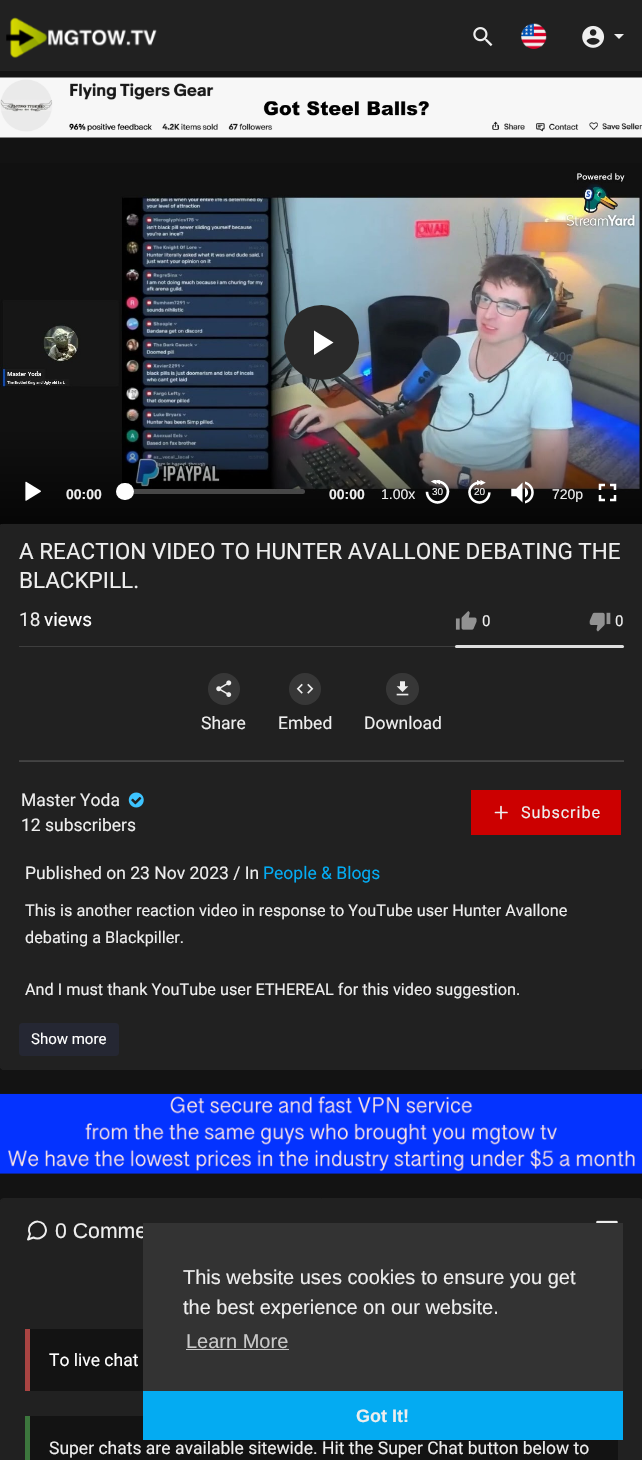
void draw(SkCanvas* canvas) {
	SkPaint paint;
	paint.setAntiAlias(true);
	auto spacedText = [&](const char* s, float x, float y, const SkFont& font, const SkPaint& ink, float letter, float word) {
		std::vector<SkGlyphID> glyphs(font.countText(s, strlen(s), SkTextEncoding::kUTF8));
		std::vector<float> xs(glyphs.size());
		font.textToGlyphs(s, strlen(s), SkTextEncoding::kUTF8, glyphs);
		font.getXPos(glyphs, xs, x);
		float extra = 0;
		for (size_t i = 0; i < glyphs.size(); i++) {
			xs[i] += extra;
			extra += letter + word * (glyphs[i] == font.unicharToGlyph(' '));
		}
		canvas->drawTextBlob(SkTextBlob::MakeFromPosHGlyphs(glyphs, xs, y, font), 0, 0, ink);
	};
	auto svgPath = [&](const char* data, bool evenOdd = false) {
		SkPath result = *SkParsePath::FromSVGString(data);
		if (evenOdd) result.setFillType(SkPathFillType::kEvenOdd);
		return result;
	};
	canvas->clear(0xff131313);
	paint.setColor(0xff212121);
	canvas->drawRect(SkRect::MakeXYWH(0, 0, 642, 71), paint);
	canvas->drawImageRect(SkImages::DeferredFromEncodedData(SkData::MakeFromFileName("img1.png")), SkRect::MakeXYWH(6, 17, 151, 41), SkSamplingOptions());
	canvas->drawImageRect(SkImages::DeferredFromEncodedData(SkData::MakeFromFileName("img2.png")), SkRect::MakeXYWH(473, 27, 20, 20), SkSamplingOptions());
	canvas->drawImageRect(SkImages::DeferredFromEncodedData(SkData::MakeFromFileName("img3.png")), SkRect::MakeXYWH(521, 23, 26, 26), SkSamplingOptions());
	canvas->drawImageRect(SkImages::DeferredFromEncodedData(SkData::MakeFromFileName("img4.png")), SkRect::MakeXYWH(582, 25, 23, 23), SkSamplingOptions());
	paint.setColor(0xffeeeeee);
	canvas->drawPath(svgPath("M614 34H624L619 39Z"), paint);
	canvas->drawImageRect(SkImages::DeferredFromEncodedData(SkData::MakeFromFileName("img5.png")), SkRect::MakeXYWH(0, 77, 642, 61), SkSamplingOptions());
	paint.setColor(0xff000000);
	canvas->drawRect(SkRect::MakeXYWH(0, 523, 642, 1), paint);
	canvas->drawImageRect(SkImages::DeferredFromEncodedData(SkData::MakeFromFileName("img6.png")), SkRect::MakeXYWH(0, 163, 642, 361), SkSamplingOptions());
	paint.setColor(0xff2a2a2a);
	canvas->drawCircle(321.5, 342.5, 37.5, paint);
	paint.setColor(0xffffffff);
	canvas->drawPath(svgPath("M314 330.5V355L333.5 342.5Z"), paint);
	paint.setStroke(true);
	paint.setStrokeWidth(1);
	paint.setColor(0xff212121);
	canvas->drawRoundRect(SkRect::MakeXYWH(-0.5, 523.5, 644, 546), 4.5, 4.5, paint);
	paint.setStroke(false);
	paint.setColor(0xbf101010);
	canvas->drawRect(SkRect::MakeXYWH(0, 523, 641, 1), paint);
	{
		const SkColor colors[] = {0x00000000, 0xb3000000};
		const float stops[] = {0, 1};
		const SkPoint ends[] = {{321, 424}, {321, 524}};
		paint.setShader(SkGradientShader::MakeLinear(ends, colors, stops, 2, SkTileMode::kClamp));
		paint.setAlpha(255);
	}
	canvas->drawRect(SkRect::MakeXYWH(0, 427, 642, 97), paint);
	canvas->drawImageRect(SkImages::DeferredFromEncodedData(SkData::MakeFromFileName("img7.png")), SkRect::MakeXYWH(25, 481, 16, 20), SkSamplingOptions());
	SkFont f1(fontMgr->matchFamilyStyle("Liberation Sans", SkFontStyle::Bold()), 14);
	f1.setSubpixel(true);
	paint.setShader(nullptr);
	paint.setColor(0xffeeeeee);
	canvas->drawString("00:00", 66, 499, f1, paint);
	paint.setColor(0x40ffffff);
	canvas->drawRoundRect(SkRect::MakeXYWH(125, 489, 180, 5), 2.5, 2.5, paint);
	paint.setColor(0xffffffff);
	canvas->drawRoundRect(SkRect::MakeXYWH(116, 483, 18, 17), 8.5, 8.5, paint);
	paint.setColor(0xffeeeeee);
	canvas->drawString("00:00", 329, 499, f1, paint);
	SkFont f2(fontMgr->matchFamilyStyle("Liberation Sans", SkFontStyle::Normal()), 14);
	f2.setSubpixel(true);
	canvas->drawString("1.00x", 381, 499, f2, paint);
	canvas->drawImageRect(SkImages::DeferredFromEncodedData(SkData::MakeFromFileName("img8.png")), SkRect::MakeXYWH(425, 480, 25, 24), SkSamplingOptions());
	SkFont f3(fontMgr->matchFamilyStyle("Liberation Sans", SkFontStyle::Normal()), 10);
	f3.setSubpixel(true);
	canvas->drawString("30", 432, 495, f3, paint);
	canvas->drawImageRect(SkImages::DeferredFromEncodedData(SkData::MakeFromFileName("img9.png")), SkRect::MakeXYWH(468, 480, 23, 24), SkSamplingOptions());
	canvas->drawString("20", 474, 495, f3, paint);
	canvas->drawImageRect(SkImages::DeferredFromEncodedData(SkData::MakeFromFileName("img10.png")), SkRect::MakeXYWH(511, 481, 23, 23), SkSamplingOptions());
	SkFont f4(fontMgr->matchFamilyStyle("Liberation Sans", SkFontStyle::Normal()), 12.5);
	f4.setSubpixel(true);
	paint.setColor(0xff53616d);
	canvas->drawString("720p", 545, 361, f4, paint);
	paint.setColor(0xffeeeeee);
	canvas->drawString("720p", 552, 499, f2, paint);
	canvas->drawImageRect(SkImages::DeferredFromEncodedData(SkData::MakeFromFileName("img11.png")), SkRect::MakeXYWH(598, 483, 19, 19), SkSamplingOptions());
	paint.setColor(0xff212121);
	canvas->drawPath(svgPath("M0 1065V1066C0 1068 2 1070 4 1070H639C641 1070 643 1068 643 1066V529L642 527V1065C642 1067 641 1069 639 1069H4C2 1069 0 1067 0 1065Z"), paint);
	canvas->drawRoundRect(SkRect::MakeXYWH(0, 524, 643, 545), 4, 4, paint);
	SkFont f5(fontMgr->matchFamilyStyle("Roboto", SkFontStyle::Normal()), 22.5);
	f5.setSubpixel(true);
	paint.setColor(0xffeeeeee);
	canvas->drawString("A REACTION VIDEO TO HUNTER AVALLONE DEBATING THE", 19, 559, f5, paint);
	canvas->drawString("BLACKPILL.", 19, 588, f5, paint);
	SkFont f6(fontMgr->matchFamilyStyle("Roboto", SkFontStyle::Normal()), 19);
	f6.setSubpixel(true);
	canvas->drawString("18", 19, 626, f6, paint);
	paint.setColor(0xffffffff);
	canvas->drawString("views", 44, 626, f6, paint);
	canvas->drawImageRect(SkImages::DeferredFromEncodedData(SkData::MakeFromFileName("img12.png")), SkRect::MakeXYWH(455, 611, 22, 19), SkSamplingOptions());
	SkFont f7(fontMgr->matchFamilyStyle("Roboto", SkFontStyle::Normal()), 15);
	f7.setSubpixel(true);
	paint.setColor(0xffeeeeee);
	canvas->drawString("0", 482, 626, f7, paint);
	canvas->drawImageRect(SkImages::DeferredFromEncodedData(SkData::MakeFromFileName("img13.png")), SkRect::MakeXYWH(589, 612, 22, 20), SkSamplingOptions());
	canvas->drawString("0", 615, 626, f7, paint);
	paint.setColor(0xff3e3e3e);
	canvas->drawRect(SkRect::MakeXYWH(19, 646, 605, 1), paint);
	paint.setColor(0xffdedede);
	canvas->drawRoundRect(SkRect::MakeXYWH(455, 645, 169, 3), 1.5, 1.5, paint);
	paint.setColor(0xff3e3e3e);
	canvas->drawRect(SkRect::MakeXYWH(19, 760, 605, 1), paint);
	paint.setColor(0xff373737);
	canvas->drawCircle(224, 689, 16, paint);
	canvas->drawImageRect(SkImages::DeferredFromEncodedData(SkData::MakeFromFileName("img14.png")), SkRect::MakeXYWH(216, 680, 16, 17), SkSamplingOptions());
	SkFont f8(fontMgr->matchFamilyStyle("Roboto", SkFontStyle::Normal()), 17.5);
	f8.setSubpixel(true);
	paint.setColor(0xffeeeeee);
	canvas->drawString("Share", 201, 729, f8, paint);
	paint.setColor(0xff373737);
	canvas->drawCircle(305, 689, 16, paint);
	canvas->drawImageRect(SkImages::DeferredFromEncodedData(SkData::MakeFromFileName("img15.png")), SkRect::MakeXYWH(296, 683, 18, 11), SkSamplingOptions());
	paint.setColor(0xffeeeeee);
	canvas->drawString("Embed", 278, 729, f8, paint);
	paint.setColor(0xff373737);
	canvas->drawRoundRect(SkRect::MakeXYWH(386, 673, 33, 32), 16, 16, paint);
	canvas->drawImageRect(SkImages::DeferredFromEncodedData(SkData::MakeFromFileName("img16.png")), SkRect::MakeXYWH(396, 681, 13, 15), SkSamplingOptions());
	paint.setColor(0xffeeeeee);
	canvas->drawString("Download", 364, 729, f8, paint);
	paint.setColor(0xff444444);
	canvas->drawRect(SkRect::MakeXYWH(19, 761, 605, 1), paint);
	paint.setColor(0xffeeeeee);
	canvas->drawString("Master Yoda", 21, 806, f8, paint);
	canvas->drawImageRect(SkImages::DeferredFromEncodedData(SkData::MakeFromFileName("img17.png")), SkRect::MakeXYWH(128, 792, 16, 16), SkSamplingOptions());
	canvas->drawString("12 subscribers", 21, 831, f8, paint);
	paint.setColor(0xffcc0000);
	canvas->drawRect(SkRect::MakeXYWH(471, 790, 150, 45), paint);
	paint.setStroke(true);
	paint.setStrokeWidth(1.7);
	paint.setStrokeCap(SkPaint::kRound_Cap);
	paint.setStrokeJoin(SkPaint::kRound_Join);
	paint.setColor(0xffeeeeee);
	canvas->drawPath(svgPath("M501 806.5V818.5M495.5 812.5H507"), paint);
	SkFont f9(fontMgr->matchFamilyStyle("Roboto", SkFontStyle::Normal()), 16.25);
	f9.setSubpixel(true);
	paint.setStroke(false);
	spacedText("Subscribe", 521, 818, f9, paint, 0.9, 0);
	canvas->drawString("Published on 23 Nov 2023 / In", 25, 879, f8, paint);
	paint.setColor(0xff04abf2);
	canvas->drawString("People & Blogs", 263, 879, f8, paint);
	paint.setColor(0xffeeeeee);
	canvas->drawString("This is another reaction video in response to YouTube user Hunter Avallone", 25, 916, f9, paint);
	canvas->drawString("debating a Blackpiller.", 25, 943, f9, paint);
	canvas->drawString("And I must thank YouTube user ETHEREAL for this video suggestion.", 25, 995, f9, paint);
	paint.setColor(0xff252733);
	canvas->drawRoundRect(SkRect::MakeXYWH(19, 1023, 100, 33), 4, 4, paint);
	paint.setColor(0xffffffff);
	canvas->drawString("Show more", 31, 1044, f7, paint);
	canvas->drawImageRect(SkImages::DeferredFromEncodedData(SkData::MakeFromFileName("img18.png")), SkRect::MakeXYWH(0, 1093, 642, 81), SkSamplingOptions());
	paint.setStroke(true);
	paint.setStrokeWidth(1);
	paint.setStrokeCap(SkPaint::kButt_Cap);
	paint.setStrokeJoin(SkPaint::kMiter_Join);
	paint.setColor(0xff212121);
	canvas->drawRoundRect(SkRect::MakeXYWH(-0.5, 1198.5, 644, 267), 4.5, 4.5, paint);
	paint.setStroke(false);
	canvas->drawRoundRect(SkRect::MakeXYWH(0, 1199, 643, 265), 4, 4, paint);
	paint.setStroke(true);
	paint.setStrokeWidth(2);
	paint.setStrokeCap(SkPaint::kRound_Cap);
	paint.setStrokeJoin(SkPaint::kRound_Join);
	paint.setColor(0xffeeeeee);
	canvas->drawPath(svgPath("M46 1230C46 1236 39 1240.5 33.5 1237.5L28 1239.5L30 1234C25.5 1225.5 36.5 1217.5 43.5 1224C45 1226 46 1228 46 1230Z"), paint);
	canvas->drawImageRect(SkImages::DeferredFromEncodedData(SkData::MakeFromFileName("img19.png")), SkRect::MakeXYWH(596, 1220, 22, 3), SkSamplingOptions());
	SkFont f10(fontMgr->matchFamilyStyle("Liberation Sans", SkFontStyle::Normal()), 21.25);
	f10.setSubpixel(true);
	paint.setStroke(false);
	canvas->drawString("0 Comme", 55, 1238, f10, paint);
	paint.setColor(0xff131313);
	canvas->drawRect(SkRect::MakeXYWH(30, 1329, 113, 62), paint);
	paint.setColor(0xffa94442);
	canvas->drawRect(SkRect::MakeXYWH(25, 1329, 5, 62), paint);
	paint.setColor(0xffffffff);
	canvas->drawString("To live chat", 49, 1366, f8, paint);
	paint.setColor(0xff131313);
	canvas->drawRect(SkRect::MakeXYWH(30, 1416, 588, 44), paint);
	paint.setColor(0xff3c763d);
	canvas->drawRect(SkRect::MakeXYWH(25, 1416, 5, 44), paint);
	paint.setColor(0xffeeeeee);
	canvas->drawString("Super chats are available sitewide. Hit the Super Chat button below to", 49, 1454, f8, paint);
	paint.setColor(0xff333333);
	canvas->drawRect(SkRect::MakeXYWH(143, 1223, 480, 168), paint);
	SkFont f11(fontMgr->matchFamilyStyle("Liberation Sans", SkFontStyle::Normal()), 20);
	f11.setSubpixel(true);
	paint.setColor(0xffeeeeee);
	canvas->drawString("This website uses cookies to ensure you get", 183, 1284, f11, paint);
	canvas->drawString("the best experience on our website.", 183, 1314, f11, paint);
	paint.setColor(0xffc9c9c9);
	canvas->drawString("Learn More", 186, 1348, f11, paint);
	canvas->drawRect(SkRect::MakeXYWH(186, 1349, 103, 1), paint);
	paint.setColor(0xff04abf2);
	canvas->drawRect(SkRect::MakeXYWH(143, 1391, 480, 49), paint);
	SkFont f12(fontMgr->matchFamilyStyle("Liberation Sans", SkFontStyle::Bold()), 18);
	f12.setSubpixel(true);
	paint.setColor(0xffeeeeee);
	canvas->drawString("Got It!", 356, 1422, f12, paint);
}
